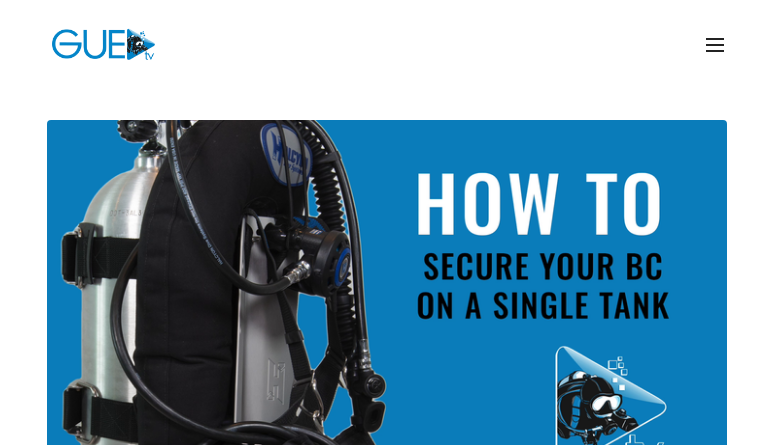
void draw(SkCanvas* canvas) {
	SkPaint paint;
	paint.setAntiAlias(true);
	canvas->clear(0xffffffff);
	canvas->drawImageRect(SkImages::DeferredFromEncodedData(SkData::MakeFromFileName("img1.png")), SkRect::MakeXYWH(52, 28, 103, 32), SkSamplingOptions());
	canvas->drawImageRect(SkImages::DeferredFromEncodedData(SkData::MakeFromFileName("img2.png")), SkRect::MakeXYWH(706, 38, 18, 14), SkSamplingOptions());
	canvas->drawImageRect(SkImages::DeferredFromEncodedData(SkData::MakeFromFileName("img3.png")), SkRect::MakeXYWH(47, 120, 680, 325), SkSamplingOptions());
}
